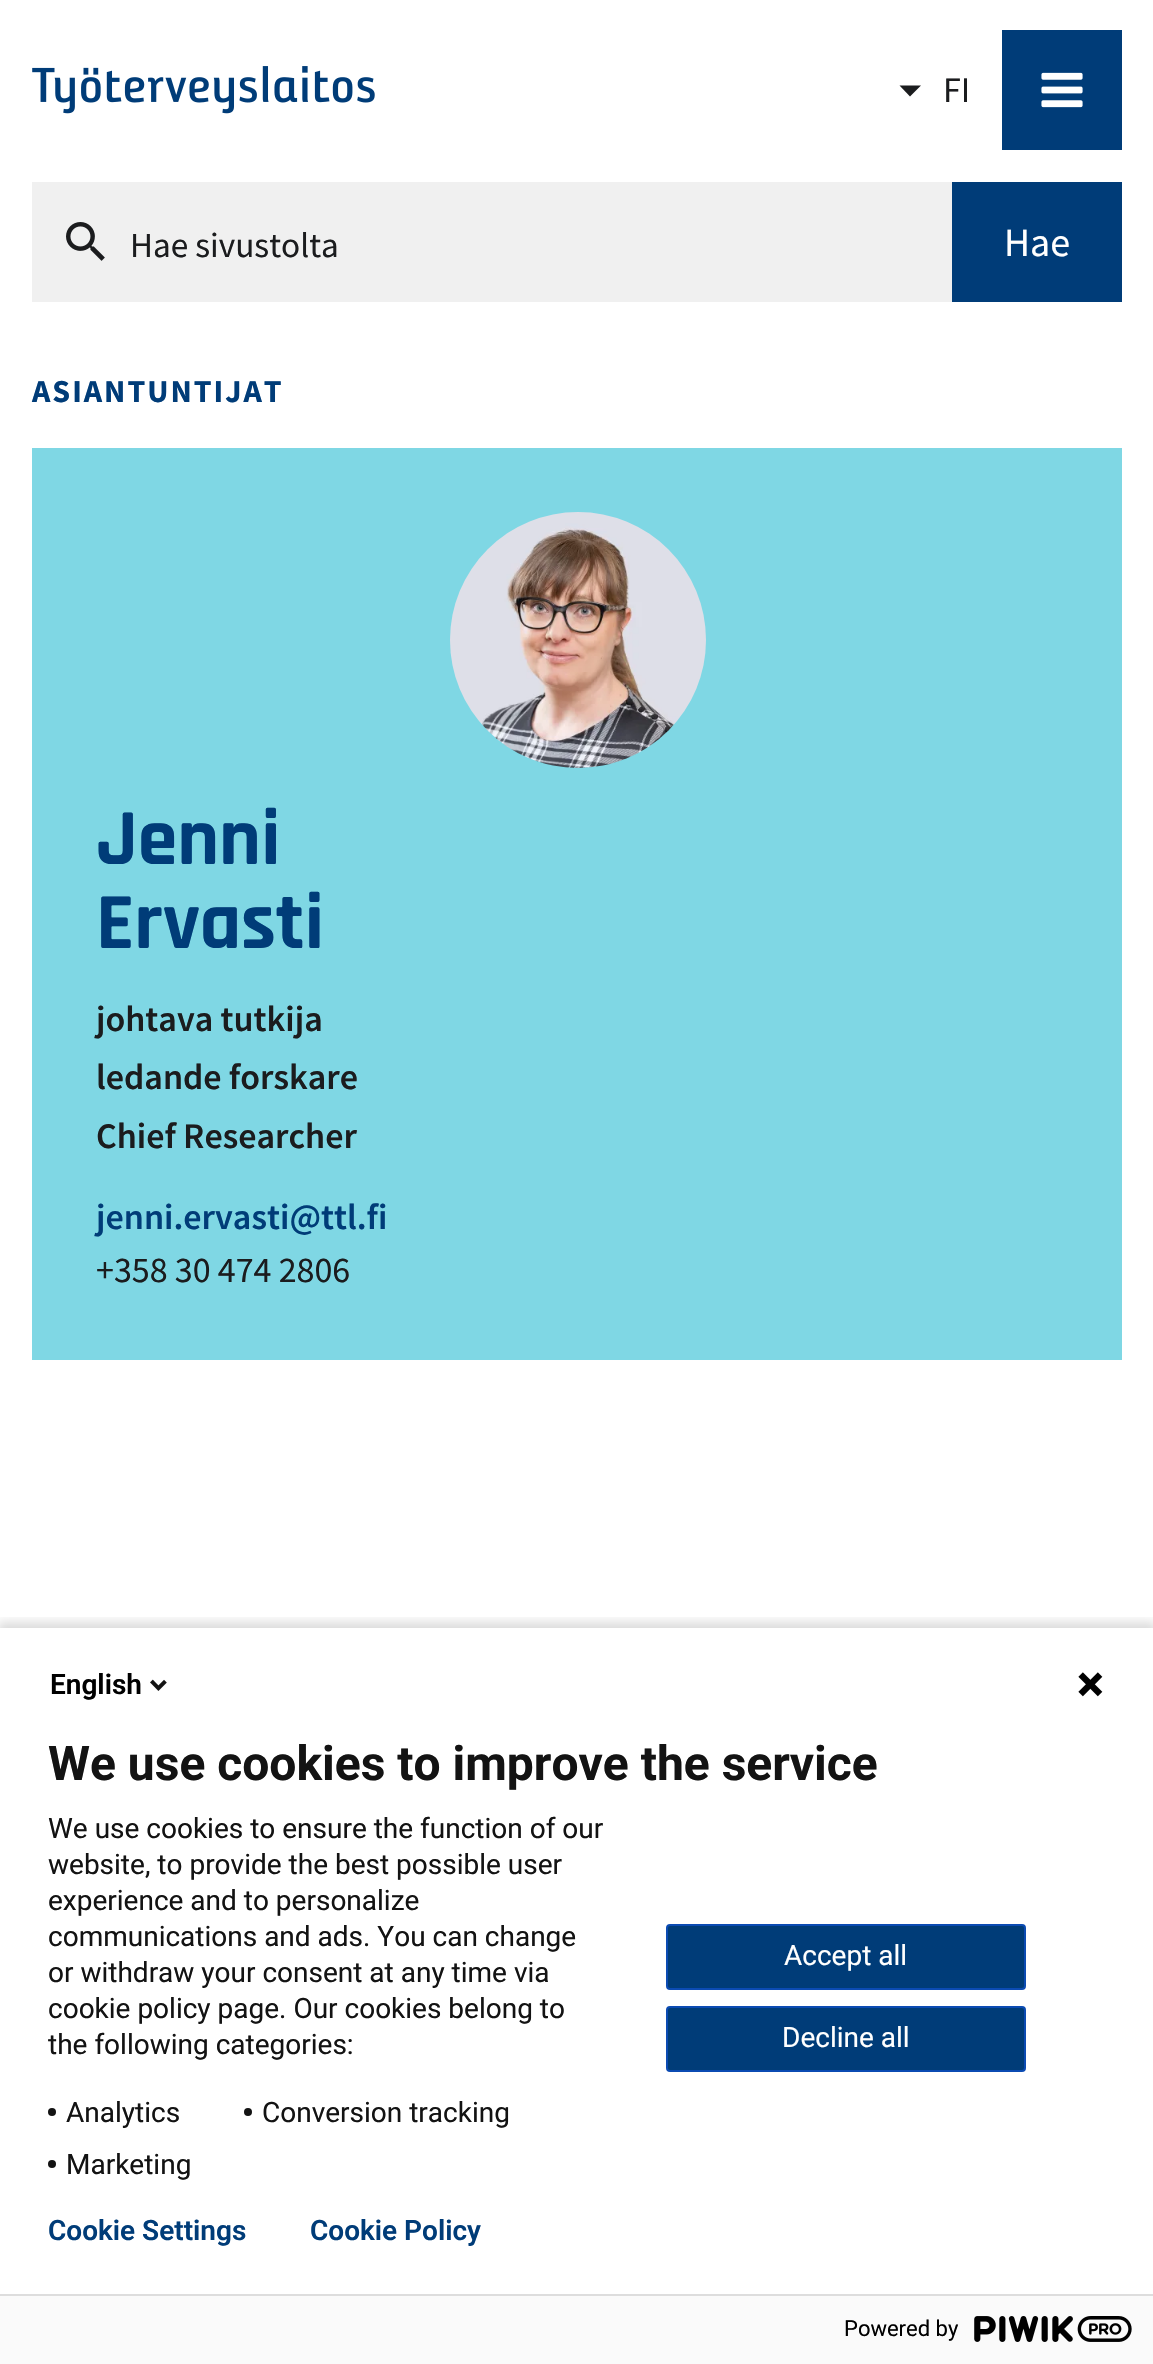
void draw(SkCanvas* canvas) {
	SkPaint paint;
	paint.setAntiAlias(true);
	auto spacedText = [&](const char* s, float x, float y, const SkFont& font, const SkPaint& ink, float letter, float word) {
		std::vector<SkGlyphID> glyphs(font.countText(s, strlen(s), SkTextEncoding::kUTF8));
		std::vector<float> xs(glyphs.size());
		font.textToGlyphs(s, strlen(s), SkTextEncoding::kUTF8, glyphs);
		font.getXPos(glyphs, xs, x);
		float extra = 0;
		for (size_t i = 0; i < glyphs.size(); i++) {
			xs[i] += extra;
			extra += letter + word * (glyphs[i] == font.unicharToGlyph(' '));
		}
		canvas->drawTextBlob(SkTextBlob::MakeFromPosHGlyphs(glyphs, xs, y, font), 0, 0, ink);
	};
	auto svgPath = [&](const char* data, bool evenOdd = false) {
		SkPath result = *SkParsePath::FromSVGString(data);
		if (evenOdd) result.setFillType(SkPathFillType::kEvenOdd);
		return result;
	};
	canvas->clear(0xffffffff);
	canvas->drawImageRect(SkImages::DeferredFromEncodedData(SkData::MakeFromFileName("img1.png")), SkRect::MakeXYWH(32, 66, 343, 48), SkSamplingOptions());
	paint.setColor(0xff1b1c1e);
	canvas->drawPath(svgPath("M899.5 85.5L910 96.5L921 85.5Z", true), paint);
	SkFont f1(fontMgr->matchFamilyStyle("Source Sans Pro", SkFontStyle::Normal()), 36);
	f1.setSubpixel(true);
	canvas->drawString("FI", 943, 102, f1, paint);
	paint.setColor(0xff003c78);
	canvas->drawRect(SkRect::MakeXYWH(1002, 30, 120, 120), paint);
	canvas->drawImageRect(SkImages::DeferredFromEncodedData(SkData::MakeFromFileName("img2.png")), SkRect::MakeXYWH(1041, 72, 42, 36), SkSamplingOptions());
	paint.setColor(0xfff0f0f0);
	canvas->drawRect(SkRect::MakeXYWH(32, 182, 920, 120), paint);
	canvas->drawImageRect(SkImages::DeferredFromEncodedData(SkData::MakeFromFileName("img3.png")), SkRect::MakeXYWH(66, 222, 39, 39), SkSamplingOptions());
	SkFont f2(fontMgr->matchFamilyStyle("Source Sans Pro", SkFontStyle::Normal()), 35.25);
	f2.setSubpixel(true);
	paint.setColor(0xff1b1c1e);
	canvas->drawString("Hae sivustolta", 130, 257, f2, paint);
	paint.setColor(0xff003c78);
	canvas->drawRect(SkRect::MakeXYWH(952, 182, 170, 120), paint);
	SkFont f3(fontMgr->matchFamilyStyle("Source Sans Pro", SkFontStyle::Normal()), 40);
	f3.setSubpixel(true);
	paint.setColor(0xffffffff);
	canvas->drawString("Hae", 1004, 256, f3, paint);
	SkFont f4(fontMgr->matchFamilyStyle("Source Sans Pro", SkFontStyle::Bold()), 32);
	f4.setSubpixel(true);
	paint.setColor(0xff003c78);
	spacedText("ASIANTUNTIJAT", 32, 402, f4, paint, 2, 0);
	paint.setColor(0xff7fd7e4);
	canvas->drawRect(SkRect::MakeXYWH(32, 448, 1090, 912), paint);
	canvas->drawImageRect(SkImages::DeferredFromEncodedData(SkData::MakeFromFileName("img4.png")), SkRect::MakeXYWH(450, 512, 256, 256), SkSamplingOptions());
	SkFont f5(fontMgr->matchFamilyStyle("Rajdhani", SkFontStyle::Bold()), 80);
	f5.setSubpixel(true);
	paint.setColor(0xff003c78);
	canvas->drawString("Jenni", 96, 864, f5, paint);
	canvas->drawString("Ervasti", 96, 948, f5, paint);
	SkFont f6(fontMgr->matchFamilyStyle("Source Sans Pro", SkFontStyle(600, SkFontStyle::kNormal_Width, SkFontStyle::kUpright_Slant)), 36);
	f6.setSubpixel(true);
	paint.setColor(0xff1b1c1e);
	canvas->drawString("johtava tutkija", 96, 1031, f6, paint);
	canvas->drawString("ledande forskare", 96, 1089, f6, paint);
	canvas->drawString("Chief Researcher", 96, 1148, f6, paint);
	paint.setColor(0xff003c78);
	canvas->drawString("jenni.ervasti@ttl.fi", 96, 1229, f6, paint);
	paint.setColor(0xff1b1c1e);
	canvas->drawString("+358 30 474 2806", 96, 1282, f1, paint);
	canvas->save();
	canvas->clipRect(SkRect::MakeXYWH(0, 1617, 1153, 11));
	paint.setColor(0x24000000);
	paint.setMaskFilter(SkMaskFilter::MakeBlur(kNormal_SkBlurStyle, 5));
	canvas->drawRect(SkRect::MakeXYWH(-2, 1622, 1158, 740), paint);
	paint.setMaskFilter(nullptr);
	canvas->restore();
	SkFont f7(fontMgr->matchFamilyStyle("Roboto", SkFontStyle(600, SkFontStyle::kNormal_Width, SkFontStyle::kUpright_Slant)), 28);
	f7.setSubpixel(true);
	paint.setColor(0xff000000);
	canvas->drawString("English", 50, 1694, f7, paint);
	canvas->drawImageRect(SkImages::DeferredFromEncodedData(SkData::MakeFromFileName("img5.png")), SkRect::MakeXYWH(150, 1679, 17, 12), SkSamplingOptions());
	canvas->drawImageRect(SkImages::DeferredFromEncodedData(SkData::MakeFromFileName("img6.png")), SkRect::MakeXYWH(1078, 1672, 25, 25), SkSamplingOptions());
	SkFont f8(fontMgr->matchFamilyStyle("Roboto", SkFontStyle::Bold()), 48);
	f8.setSubpixel(true);
	paint.setColor(0xff131313);
	canvas->drawString("We use cookies to improve the service", 48, 1780, f8, paint);
	SkFont f9(fontMgr->matchFamilyStyle("Roboto", SkFontStyle::Normal()), 28);
	f9.setSubpixel(true);
	canvas->drawString("We use cookies to ensure the function of our", 48, 1838, f9, paint);
	canvas->drawString("website, to provide the best possible user", 48, 1874, f9, paint);
	canvas->drawString("experience and to personalize", 48, 1910, f9, paint);
	canvas->drawString("communications and ads. You can change", 48, 1946, f9, paint);
	canvas->drawString("or withdraw your consent at any time via", 48, 1982, f9, paint);
	canvas->drawString("cookie policy page. Our cookies belong to", 48, 2018, f9, paint);
	canvas->drawString("the following categories:", 48, 2054, f9, paint);
	canvas->drawCircle(52, 2112, 4, paint);
	canvas->drawString("Analytics", 66, 2122, f9, paint);
	canvas->drawCircle(248, 2112, 4, paint);
	canvas->drawString("Conversion tracking", 262, 2122, f9, paint);
	canvas->drawCircle(52, 2164, 4, paint);
	canvas->drawString("Marketing", 66, 2174, f9, paint);
	paint.setColor(0xff003c78);
	canvas->drawRoundRect(SkRect::MakeXYWH(667, 1925, 358, 64), 3, 3, paint);
	paint.setStroke(true);
	paint.setStrokeWidth(2);
	paint.setColor(0xff0b4bb3);
	canvas->drawRoundRect(SkRect::MakeXYWH(667, 1925, 358, 64), 3, 3, paint);
	paint.setStroke(false);
	paint.setColor(0xffffffff);
	canvas->drawString("Accept all", 784, 1965, f9, paint);
	paint.setColor(0xff003c78);
	canvas->drawRoundRect(SkRect::MakeXYWH(667, 2007, 358, 64), 3, 3, paint);
	paint.setStroke(true);
	paint.setColor(0xff0b4bb3);
	canvas->drawRoundRect(SkRect::MakeXYWH(667, 2007, 358, 64), 3, 3, paint);
	paint.setStroke(false);
	paint.setColor(0xffffffff);
	canvas->drawString("Decline all", 782, 2047, f9, paint);
	paint.setColor(0xff003c78);
	canvas->drawString("Cookie Settings", 48, 2240, f7, paint);
	canvas->drawString("Cookie Policy", 310, 2240, f7, paint);
	paint.setColor(0xfffafafa);
	canvas->drawRect(SkRect::MakeXYWH(0, 2296, 1153, 68), paint);
	paint.setColor(0xffdddddd);
	canvas->drawRect(SkRect::MakeXYWH(0, 2294, 1153, 2), paint);
	SkFont f10(fontMgr->matchFamilyStyle("Roboto", SkFontStyle::Normal()), 22);
	f10.setSubpixel(true);
	paint.setColor(0xff000000);
	canvas->drawString("Powered by", 844, 2336, f10, paint);
	canvas->drawImageRect(SkImages::DeferredFromEncodedData(SkData::MakeFromFileName("img7.png")), SkRect::MakeXYWH(974, 2316, 158, 26), SkSamplingOptions());
}
